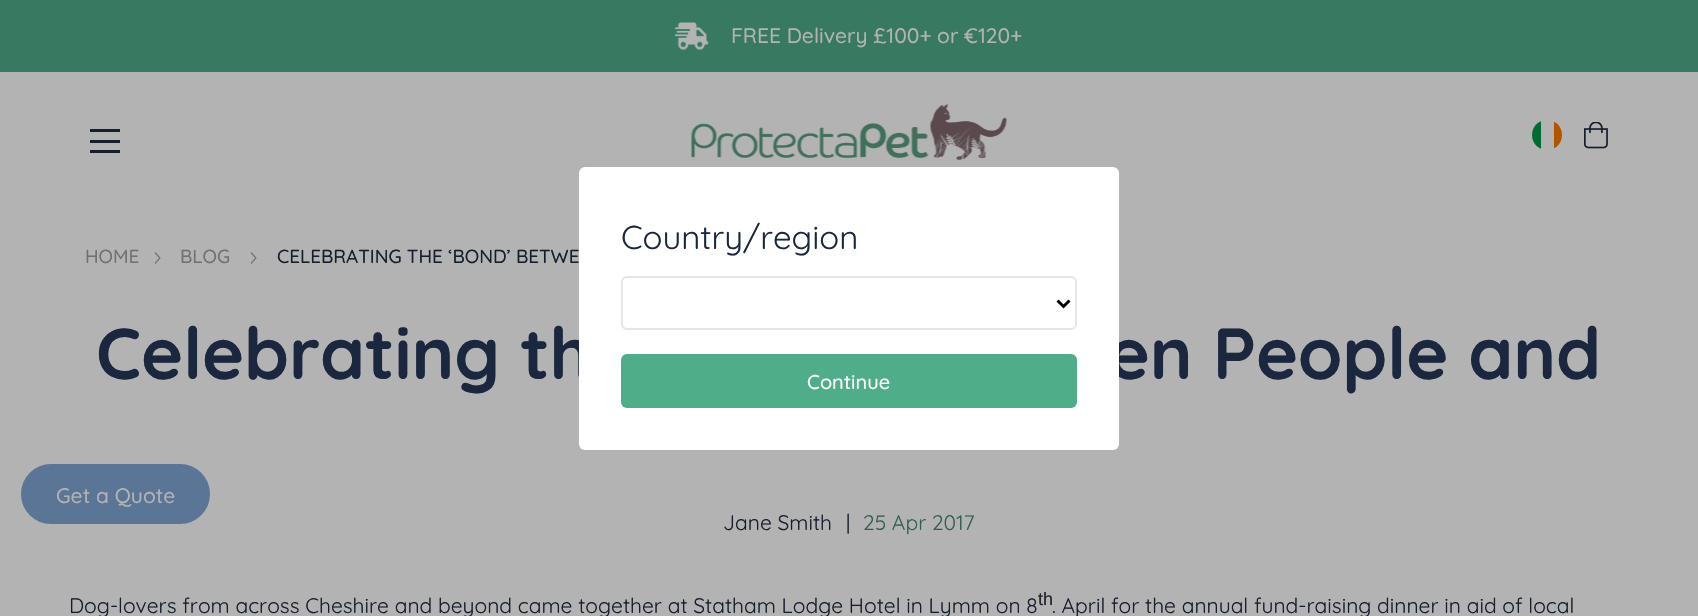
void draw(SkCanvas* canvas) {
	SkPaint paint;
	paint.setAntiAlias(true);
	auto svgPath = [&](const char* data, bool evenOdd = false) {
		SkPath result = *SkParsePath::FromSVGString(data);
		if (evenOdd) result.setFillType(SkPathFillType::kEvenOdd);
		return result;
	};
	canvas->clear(0xffb3b3b3);
	paint.setColor(0xff387961);
	canvas->drawRect(SkRect::MakeXYWH(0, 0, 1698, 72), paint);
	canvas->drawImageRect(SkImages::DeferredFromEncodedData(SkData::MakeFromFileName("img1.png")), SkRect::MakeXYWH(675, 22, 34, 29), SkSamplingOptions());
	SkFont f1(fontMgr->matchFamilyStyle("Quicksand", SkFontStyle(500, SkFontStyle::kNormal_Width, SkFontStyle::kUpright_Slant)), 21);
	f1.setSubpixel(true);
	paint.setColor(0xffb3b3b3);
	canvas->drawString("FREE Delivery £100+ or €120+", 731, 43, f1, paint);
	paint.setColor(0xff161d2b);
	canvas->drawRect(SkRect::MakeXYWH(90, 129, 30, 3), paint);
	canvas->drawRect(SkRect::MakeXYWH(90, 140, 30, 3), paint);
	canvas->drawRect(SkRect::MakeXYWH(90, 150, 30, 3), paint);
	canvas->drawImageRect(SkImages::DeferredFromEncodedData(SkData::MakeFromFileName("img2.png")), SkRect::MakeXYWH(691, 104, 316, 56), SkSamplingOptions());
	canvas->save();
	canvas->clipPath(svgPath("M1547 120C1555.5 120 1562 126.5 1562 135C1562 143.5 1555.5 150 1547 150C1538.5 150 1532 143.5 1532 135C1532 126.5 1538.5 120 1547 120Z"), true);
	paint.setColor(0xff006c33);
	canvas->drawRect(SkRect::MakeXYWH(1532, 121, 9, 28), paint);
	paint.setColor(0xffb35500);
	canvas->drawRect(SkRect::MakeXYWH(1554, 120, 8, 30), paint);
	canvas->restore();
	canvas->drawImageRect(SkImages::DeferredFromEncodedData(SkData::MakeFromFileName("img3.png")), SkRect::MakeXYWH(1584, 122, 24, 27), SkSamplingOptions());
	SkFont f2(fontMgr->matchFamilyStyle("Quicksand", SkFontStyle::Bold()), 72);
	f2.setSubpixel(true);
	paint.setColor(0xff1a273e);
	canvas->drawString("Celebrating th", 96, 379, f2, paint);
	canvas->drawString("en People and", 1108, 379, f2, paint);
	paint.setColor(0xffffffff);
	canvas->drawRoundRect(SkRect::MakeXYWH(579, 167, 540, 283), 6, 6, paint);
	SkFont f3(fontMgr->matchFamilyStyle("Quicksand", SkFontStyle::Normal()), 33);
	f3.setSubpixel(true);
	paint.setColor(0xff1a273e);
	canvas->drawString("Country/region", 621, 249, f3, paint);
	paint.setStroke(true);
	paint.setStrokeWidth(2);
	paint.setColor(0xffe6e6e6);
	canvas->drawRoundRect(SkRect::MakeXYWH(622, 277, 454, 52), 5, 5, paint);
	paint.setStrokeWidth(3);
	paint.setColor(0xff000000);
	canvas->drawPath(svgPath("M1057.5 300.5L1063.5 306.5L1069.5 300.5"), paint);
	paint.setStroke(false);
	paint.setColor(0xff50ad8a);
	canvas->drawRoundRect(SkRect::MakeXYWH(621, 354, 456, 54), 6, 6, paint);
	SkFont f4(fontMgr->matchFamilyStyle("Quicksand", SkFontStyle(500, SkFontStyle::kNormal_Width, SkFontStyle::kUpright_Slant)), 20);
	f4.setSubpixel(true);
	paint.setColor(0xffffffff);
	canvas->drawString("Continue", 807, 389, f4, paint);
	SkFont f5(fontMgr->matchFamilyStyle("Quicksand", SkFontStyle(500, SkFontStyle::kNormal_Width, SkFontStyle::kUpright_Slant)), 18.9);
	f5.setSubpixel(true);
	paint.setColor(0xff717171);
	canvas->drawString("HOME", 85, 263, f5, paint);
	canvas->drawImageRect(SkImages::DeferredFromEncodedData(SkData::MakeFromFileName("img4.png")), SkRect::MakeXYWH(155, 252, 6, 12), SkSamplingOptions());
	canvas->drawString("BLOG", 180, 263, f5, paint);
	canvas->drawImageRect(SkImages::DeferredFromEncodedData(SkData::MakeFromFileName("img4.png")), SkRect::MakeXYWH(251, 252, 6, 12), SkSamplingOptions());
	paint.setColor(0xff161d2b);
	canvas->drawString("CELEBRATING THE ‘BOND’ BETWE", 277, 263, f5, paint);
	SkFont f6(fontMgr->matchFamilyStyle("Quicksand", SkFontStyle::Normal()), 21);
	f6.setSubpixel(true);
	canvas->drawString("Jane Smith", 723, 530, f6, paint);
	canvas->drawString("|", 846, 530, f6, paint);
	paint.setColor(0xff30614e);
	canvas->drawString("25 Apr 2017", 863, 530, f6, paint);
	paint.setColor(0xff161d2b);
	canvas->drawString("Dog-lovers from across Cheshire and beyond came together at Statham Lodge Hotel in Lymm on 8", 69, 613, f6, paint);
	SkFont f7(fontMgr->matchFamilyStyle("Liberation Sans", SkFontStyle::Normal()), 18);
	f7.setSubpixel(true);
	paint.setColor(0xff24222c);
	canvas->drawString("th", 1038, 605, f7, paint);
	paint.setColor(0xff161d2b);
	canvas->drawString(". April for the annual fund-raising dinner in aid of local", 1052, 613, f6, paint);
	paint.setColor(0xff5a7595);
	canvas->drawRoundRect(SkRect::MakeXYWH(22.5, 465.5, 186, 57), 28.5, 28.5, paint);
	paint.setStroke(true);
	canvas->drawRoundRect(SkRect::MakeXYWH(22.5, 465.5, 186, 57), 28.5, 28.5, paint);
	paint.setStroke(false);
	paint.setColor(0xffb3b3b3);
	canvas->drawString("Get a Quote", 56, 503, f1, paint);
}
